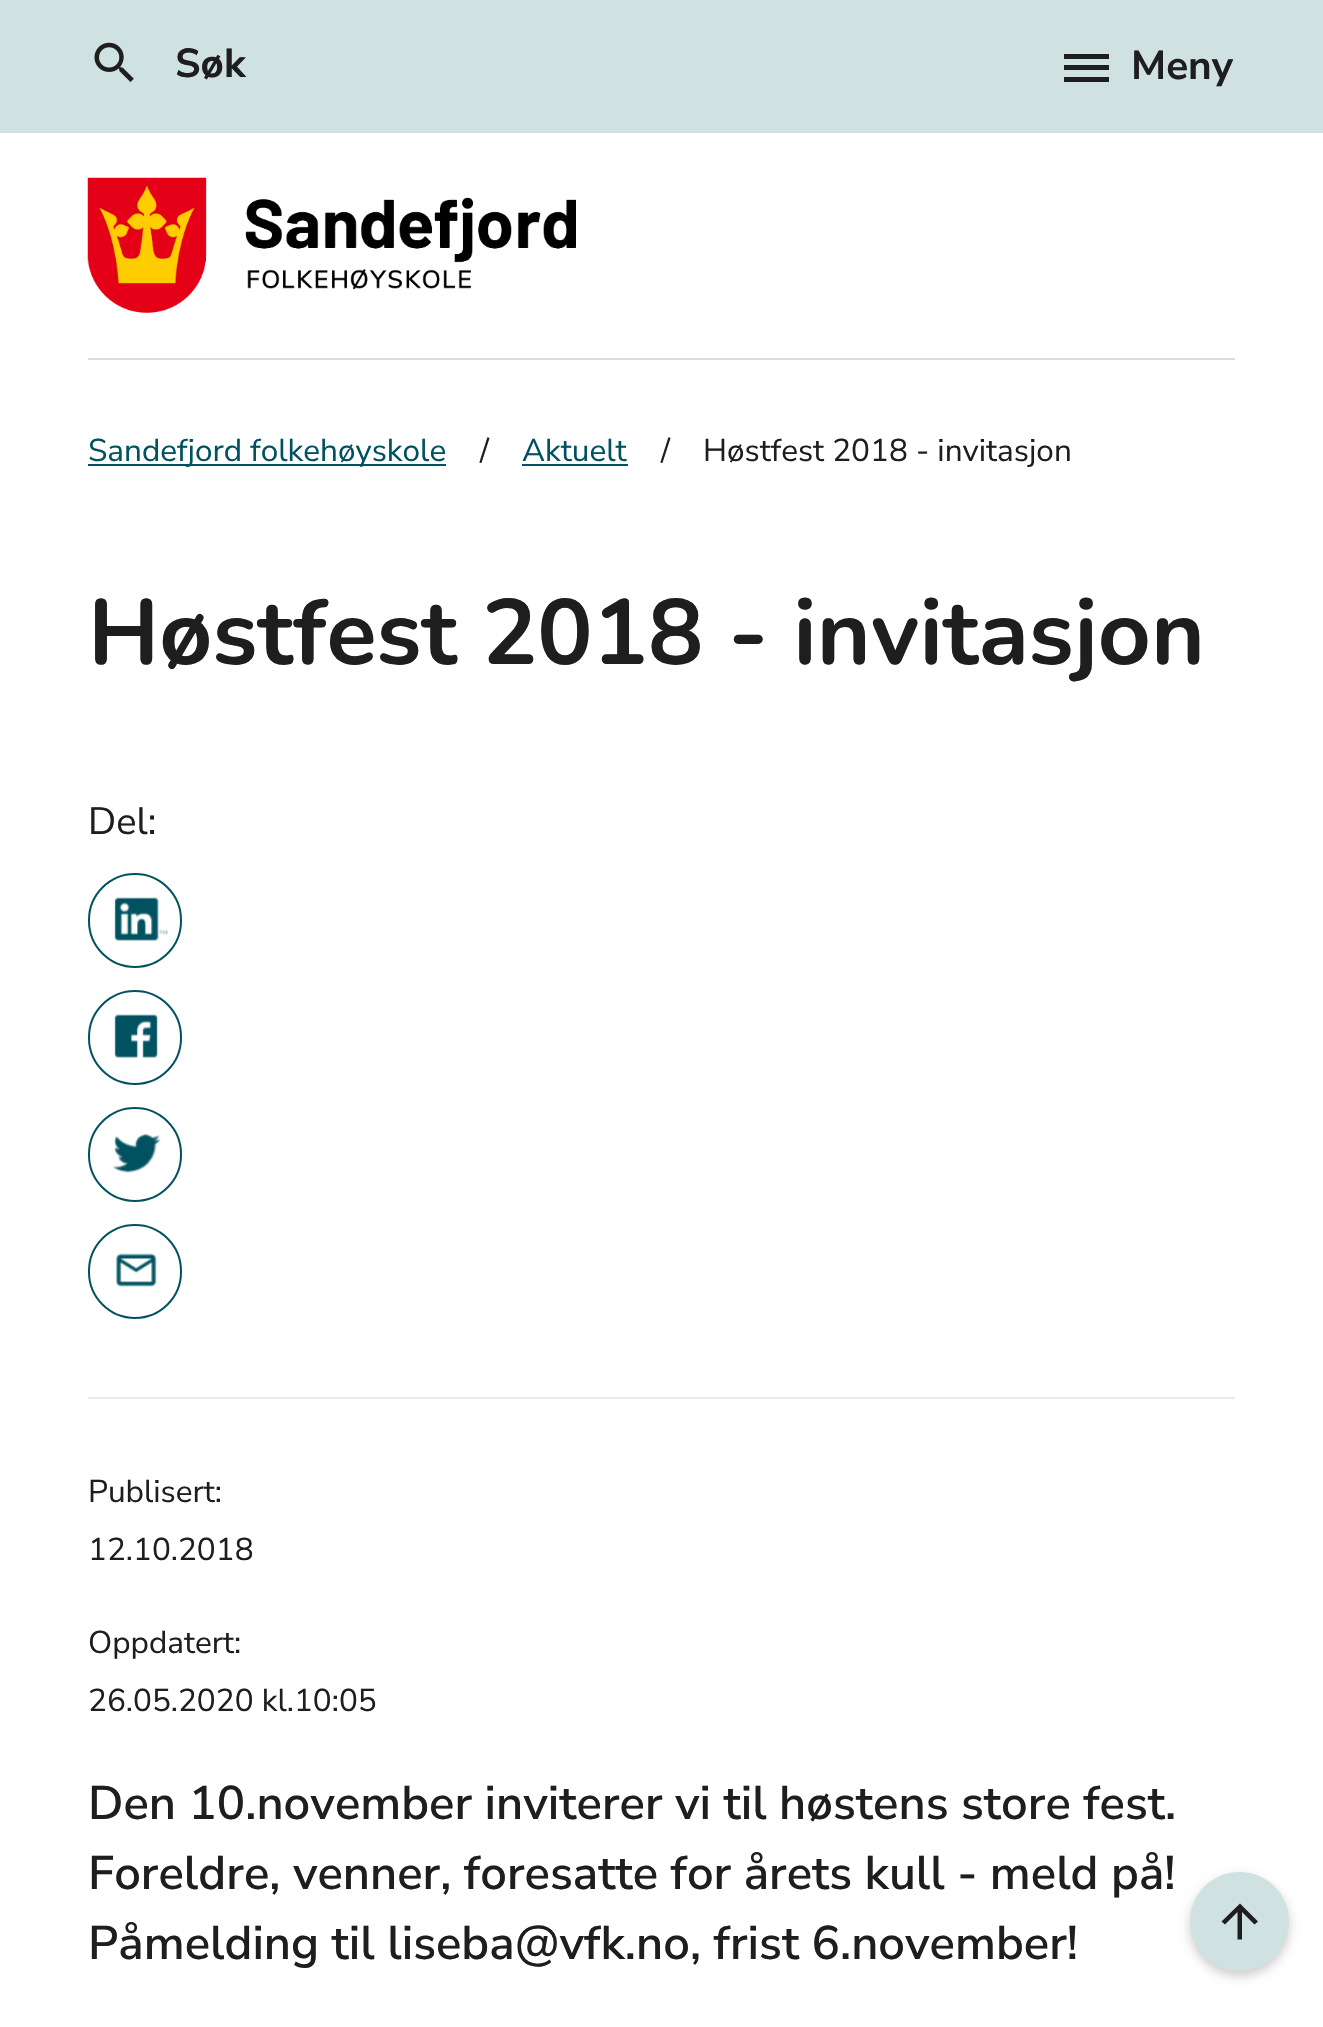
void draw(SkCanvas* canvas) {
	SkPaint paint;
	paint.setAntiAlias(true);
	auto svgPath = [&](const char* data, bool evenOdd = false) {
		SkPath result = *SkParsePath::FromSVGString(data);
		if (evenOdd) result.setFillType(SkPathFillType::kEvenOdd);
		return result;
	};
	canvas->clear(0xffffffff);
	paint.setColor(0xffd0e1e1);
	canvas->drawRect(SkRect::MakeXYWH(0, 0, 1323, 133), paint);
	canvas->drawImageRect(SkImages::DeferredFromEncodedData(SkData::MakeFromFileName("img1.png")), SkRect::MakeXYWH(94, 42, 40, 40), SkSamplingOptions());
	SkFont f1(fontMgr->matchFamilyStyle("Nunito Sans", SkFontStyle::Bold()), 40.5);
	f1.setSubpixel(true);
	paint.setColor(0xff1e1e1e);
	canvas->drawString("Søk", 175, 77, f1, paint);
	canvas->drawRect(SkRect::MakeXYWH(1064, 54, 45, 5), paint);
	canvas->drawRect(SkRect::MakeXYWH(1064, 65, 45, 5), paint);
	canvas->drawRect(SkRect::MakeXYWH(1064, 77, 45, 5), paint);
	canvas->drawString("Meny", 1131, 79, f1, paint);
	canvas->drawImageRect(SkImages::DeferredFromEncodedData(SkData::MakeFromFileName("img2.png")), SkRect::MakeXYWH(87, 177, 489, 136), SkSamplingOptions());
	paint.setColor(0xffd0e1e1);
	canvas->drawRect(SkRect::MakeXYWH(88, 358, 1147, 2), paint);
	paint.setColor(0xff005260);
	canvas->drawRect(SkRect::MakeXYWH(88, 464, 358, 2), paint);
	SkFont f2(fontMgr->matchFamilyStyle("Nunito Sans", SkFontStyle::Normal()), 31.5);
	f2.setSubpixel(true);
	canvas->drawString("Sandefjord folkehøyskole", 88, 461, f2, paint);
	paint.setColor(0xff1e1e1e);
	canvas->drawString("/", 480, 461, f2, paint);
	paint.setColor(0xff005260);
	canvas->drawString("Aktuelt", 522, 461, f2, paint);
	canvas->drawRect(SkRect::MakeXYWH(522, 464, 106, 2), paint);
	paint.setColor(0xff1e1e1e);
	canvas->drawString("/", 661, 461, f2, paint);
	canvas->drawString("Høstfest 2018 - invitasjon", 703, 461, f2, paint);
	SkFont f3(fontMgr->matchFamilyStyle("Nunito", SkFontStyle::Bold()), 92.25);
	f3.setSubpixel(true);
	canvas->drawString("Høstfest 2018 - invitasjon", 88, 664, f3, paint);
	SkFont f4(fontMgr->matchFamilyStyle("Nunito Sans", SkFontStyle::Normal()), 38);
	f4.setSubpixel(true);
	canvas->drawString("Del:", 88, 834, f4, paint);
	paint.setStroke(true);
	paint.setStrokeWidth(2);
	paint.setColor(0xff005260);
	canvas->drawRoundRect(SkRect::MakeXYWH(89, 874, 92, 93), 46, 46, paint);
	canvas->drawImageRect(SkImages::DeferredFromEncodedData(SkData::MakeFromFileName("img3.png")), SkRect::MakeXYWH(114, 897, 55, 44), SkSamplingOptions());
	canvas->drawRoundRect(SkRect::MakeXYWH(89, 991, 92, 93), 46, 46, paint);
	canvas->drawImageRect(SkImages::DeferredFromEncodedData(SkData::MakeFromFileName("img4.png")), SkRect::MakeXYWH(114, 1014, 44, 44), SkSamplingOptions());
	canvas->drawRoundRect(SkRect::MakeXYWH(89, 1108, 92, 93), 46, 46, paint);
	canvas->drawImageRect(SkImages::DeferredFromEncodedData(SkData::MakeFromFileName("img5.png")), SkRect::MakeXYWH(112, 1134, 49, 39), SkSamplingOptions());
	canvas->drawRoundRect(SkRect::MakeXYWH(89, 1225, 92, 93), 46, 46, paint);
	canvas->drawImageRect(SkImages::DeferredFromEncodedData(SkData::MakeFromFileName("img6.png")), SkRect::MakeXYWH(116, 1253, 41, 34), SkSamplingOptions());
	paint.setStroke(false);
	paint.setColor(0xffe9e9e9);
	canvas->drawRect(SkRect::MakeXYWH(88, 1397, 1147, 2), paint);
	paint.setColor(0xff1e1e1e);
	canvas->drawString("Publisert:", 88, 1502, f2, paint);
	canvas->drawString("12.10.2018", 88, 1560, f2, paint);
	canvas->drawString("Oppdatert:", 88, 1653, f2, paint);
	canvas->drawString("26.05.2020 kl.10:05", 88, 1711, f2, paint);
	SkFont f5(fontMgr->matchFamilyStyle("Nunito Sans", SkFontStyle(600, SkFontStyle::kNormal_Width, SkFontStyle::kUpright_Slant)), 47.25);
	f5.setSubpixel(true);
	canvas->drawString("Den 10.november inviterer vi til høstens store fest.", 88, 1819, f5, paint);
	canvas->drawString("Foreldre, venner, foresatte for årets kull - meld på!", 88, 1889, f5, paint);
	canvas->drawString("Påmelding til liseba@vfk.no, frist 6.november!", 88, 1959, f5, paint);
	paint.setColor(0x33000000);
	paint.setMaskFilter(SkMaskFilter::MakeBlur(kNormal_SkBlurStyle, 5.5));
	canvas->drawRoundRect(SkRect::MakeXYWH(1190, 1877, 99, 99), 49.5, 49.5, paint);
	paint.setMaskFilter(nullptr);
	paint.setColor(0xffd0e1e1);
	canvas->drawCircle(1239.5, 1921.5, 49.5, paint);
	paint.setColor(0xff1e1e1e);
	canvas->drawPath(svgPath("M1221.5 1921.5L1240 1903.5L1258 1921.5L1254.5 1924.5L1242 1912V1939.5H1237.5V1912L1225 1924.5Z"), paint);
}
